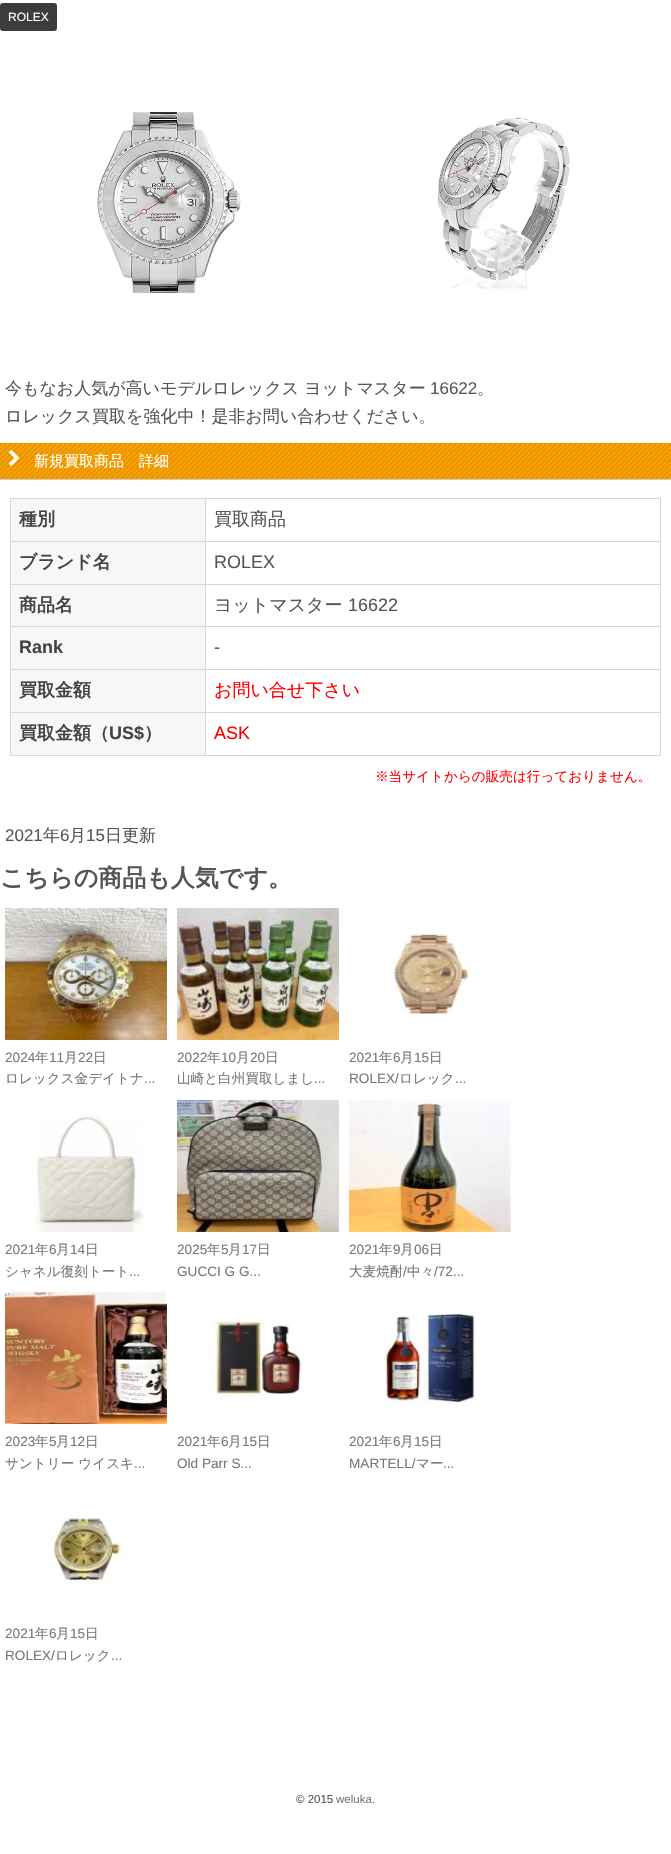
void draw(SkCanvas* canvas) {
	SkPaint paint;
	paint.setAntiAlias(true);
	canvas->clear(0xffffffff);
	paint.setColor(0xff3c3c3c);
	canvas->drawRoundRect(SkRect::MakeXYWH(0, 3, 57, 28), 3, 3, paint);
	SkFont f1(fontMgr->matchFamilyStyle("Liberation Sans", SkFontStyle::Normal()), 12);
	f1.setSubpixel(true);
	paint.setColor(0xffffffff);
	canvas->drawString("ROLEX", 8, 21, f1, paint);
	canvas->drawImageRect(SkImages::DeferredFromEncodedData(SkData::MakeFromFileName("img1.png")), SkRect::MakeXYWH(97, 110, 144, 184), SkSamplingOptions());
	canvas->drawImageRect(SkImages::DeferredFromEncodedData(SkData::MakeFromFileName("img2.png")), SkRect::MakeXYWH(437, 117, 133, 173), SkSamplingOptions());
	SkFont f2(fontMgr->matchFamilyStyle("WenQuanYi Zen Hei", SkFontStyle(500, SkFontStyle::kNormal_Width, SkFontStyle::kUpright_Slant)), 17);
	f2.setSubpixel(true);
	paint.setColor(0xff555555);
	canvas->drawString("今もなお人気が高いモデルロレックス ヨットマスター", 5, 394, f2, paint);
	SkFont f3(fontMgr->matchFamilyStyle("Liberation Sans", SkFontStyle::Normal()), 17);
	f3.setSubpixel(true);
	canvas->drawString("16622", 430, 394, f3, paint);
	canvas->drawString("。", 477, 394, f2, paint);
	canvas->drawString("ロレックス買取を強化中！是非お問い合わせください。", 5, 422, f2, paint);
	canvas->drawImageRect(SkImages::DeferredFromEncodedData(SkData::MakeFromFileName("img3.png")), SkRect::MakeXYWH(0, 443, 671, 36), SkSamplingOptions());
	paint.setColor(0xffcccccc);
	canvas->drawRect(SkRect::MakeXYWH(0, 479, 671, 1), paint);
	canvas->drawImageRect(SkImages::DeferredFromEncodedData(SkData::MakeFromFileName("img4.png")), SkRect::MakeXYWH(8, 449, 12, 17), SkSamplingOptions());
	SkFont f4(fontMgr->matchFamilyStyle("WenQuanYi Zen Hei", SkFontStyle(500, SkFontStyle::kNormal_Width, SkFontStyle::kUpright_Slant)), 15);
	f4.setSubpixel(true);
	paint.setColor(0xffffffff);
	canvas->drawString("新規買取商品　詳細", 34, 466, f4, paint);
	paint.setColor(0xfff7f7f7);
	canvas->drawRect(SkRect::MakeXYWH(11, 499, 194, 42), paint);
	paint.setColor(0xffd7d7d7);
	canvas->drawRect(SkRect::MakeXYWH(205, 498, 456, 1), paint);
	canvas->drawRect(SkRect::MakeXYWH(205, 541, 456, 1), paint);
	canvas->drawRect(SkRect::MakeXYWH(205, 584, 456, 1), paint);
	canvas->drawRect(SkRect::MakeXYWH(205, 626, 456, 1), paint);
	canvas->drawRect(SkRect::MakeXYWH(205, 669, 456, 1), paint);
	canvas->drawRect(SkRect::MakeXYWH(205, 712, 456, 1), paint);
	canvas->drawRect(SkRect::MakeXYWH(660, 712, 1, 44), paint);
	canvas->drawRect(SkRect::MakeXYWH(205, 755, 456, 1), paint);
	canvas->drawRect(SkRect::MakeXYWH(205, 712, 1, 44), paint);
	canvas->drawRect(SkRect::MakeXYWH(10, 712, 196, 1), paint);
	canvas->drawRect(SkRect::MakeXYWH(205, 669, 1, 44), paint);
	canvas->drawRect(SkRect::MakeXYWH(10, 669, 196, 1), paint);
	canvas->drawRect(SkRect::MakeXYWH(205, 626, 1, 44), paint);
	canvas->drawRect(SkRect::MakeXYWH(10, 626, 196, 1), paint);
	canvas->drawRect(SkRect::MakeXYWH(205, 584, 1, 43), paint);
	canvas->drawRect(SkRect::MakeXYWH(10, 584, 196, 1), paint);
	canvas->drawRect(SkRect::MakeXYWH(205, 541, 1, 44), paint);
	canvas->drawRect(SkRect::MakeXYWH(10, 541, 196, 1), paint);
	canvas->drawRect(SkRect::MakeXYWH(205, 498, 1, 44), paint);
	canvas->drawRect(SkRect::MakeXYWH(10, 498, 196, 1), paint);
	canvas->drawRect(SkRect::MakeXYWH(10, 755, 196, 1), paint);
	canvas->drawRect(SkRect::MakeXYWH(10, 712, 1, 44), paint);
	canvas->drawRect(SkRect::MakeXYWH(10, 669, 1, 44), paint);
	canvas->drawRect(SkRect::MakeXYWH(10, 626, 1, 44), paint);
	canvas->drawRect(SkRect::MakeXYWH(10, 584, 1, 43), paint);
	canvas->drawRect(SkRect::MakeXYWH(10, 541, 1, 44), paint);
	canvas->drawRect(SkRect::MakeXYWH(10, 498, 1, 44), paint);
	SkFont f5(fontMgr->matchFamilyStyle("WenQuanYi Zen Hei", SkFontStyle::Bold()), 18);
	f5.setSubpixel(true);
	paint.setColor(0xff444444);
	canvas->drawString("種別", 19, 525, f5, paint);
	paint.setColor(0xffd7d7d7);
	canvas->drawRect(SkRect::MakeXYWH(660, 669, 1, 44), paint);
	canvas->drawRect(SkRect::MakeXYWH(660, 626, 1, 44), paint);
	canvas->drawRect(SkRect::MakeXYWH(660, 584, 1, 43), paint);
	canvas->drawRect(SkRect::MakeXYWH(660, 541, 1, 44), paint);
	canvas->drawRect(SkRect::MakeXYWH(660, 498, 1, 44), paint);
	SkFont f6(fontMgr->matchFamilyStyle("WenQuanYi Zen Hei", SkFontStyle(500, SkFontStyle::kNormal_Width, SkFontStyle::kUpright_Slant)), 18);
	f6.setSubpixel(true);
	paint.setColor(0xff555555);
	canvas->drawString("買取商品", 214, 525, f6, paint);
	paint.setColor(0xfff7f7f7);
	canvas->drawRect(SkRect::MakeXYWH(11, 542, 194, 42), paint);
	paint.setColor(0xff444444);
	canvas->drawString("ブランド名", 19, 568, f5, paint);
	SkFont f7(fontMgr->matchFamilyStyle("Liberation Sans", SkFontStyle::Normal()), 18);
	f7.setSubpixel(true);
	paint.setColor(0xff555555);
	canvas->drawString("ROLEX", 214, 568, f7, paint);
	paint.setColor(0xfff7f7f7);
	canvas->drawRect(SkRect::MakeXYWH(11, 585, 194, 41), paint);
	paint.setColor(0xff444444);
	canvas->drawString("商品名", 19, 611, f5, paint);
	paint.setColor(0xff555555);
	canvas->drawString("ヨットマスター", 214, 611, f6, paint);
	canvas->drawString("16622", 348, 611, f7, paint);
	paint.setColor(0xfff7f7f7);
	canvas->drawRect(SkRect::MakeXYWH(11, 627, 194, 42), paint);
	SkFont f8(fontMgr->matchFamilyStyle("Liberation Sans", SkFontStyle::Bold()), 18);
	f8.setSubpixel(true);
	paint.setColor(0xff444444);
	canvas->drawString("Rank", 19, 653, f8, paint);
	paint.setColor(0xff555555);
	canvas->drawString("-", 214, 653, f7, paint);
	paint.setColor(0xfff7f7f7);
	canvas->drawRect(SkRect::MakeXYWH(11, 670, 194, 42), paint);
	paint.setColor(0xff444444);
	canvas->drawString("買取金額", 19, 696, f5, paint);
	paint.setColor(0xffff0000);
	canvas->drawString("お問い合せ下さい", 214, 696, f6, paint);
	paint.setColor(0xfff7f7f7);
	canvas->drawRect(SkRect::MakeXYWH(11, 713, 194, 42), paint);
	paint.setColor(0xff444444);
	canvas->drawString("買取金額（", 19, 739, f5, paint);
	canvas->drawString("US$", 109, 739, f8, paint);
	canvas->drawString("）", 144, 739, f5, paint);
	paint.setColor(0xffff0000);
	canvas->drawString("ASK", 214, 739, f7, paint);
	SkFont f9(fontMgr->matchFamilyStyle("WenQuanYi Zen Hei", SkFontStyle(500, SkFontStyle::kNormal_Width, SkFontStyle::kUpright_Slant)), 13.6);
	f9.setSubpixel(true);
	canvas->drawString("※当サイトからの販売は行っておりません。", 375, 781, f9, paint);
	paint.setColor(0xff555555);
	canvas->drawString("2021", 5, 841, f3, paint);
	canvas->drawString("年", 43, 841, f2, paint);
	canvas->drawString("6", 60, 841, f3, paint);
	canvas->drawString("月", 69, 841, f2, paint);
	canvas->drawString("15", 86, 841, f3, paint);
	canvas->drawString("日更新", 105, 841, f2, paint);
	SkFont f10(fontMgr->matchFamilyStyle("WenQuanYi Zen Hei", SkFontStyle::Bold()), 24);
	f10.setSubpixel(true);
	canvas->drawString("こちらの商品も人気です。", 0, 886, f10, paint);
	canvas->drawImageRect(SkImages::DeferredFromEncodedData(SkData::MakeFromFileName("img5.png")), SkRect::MakeXYWH(5, 908, 162, 132), SkSamplingOptions());
	SkFont f11(fontMgr->matchFamilyStyle("Liberation Sans", SkFontStyle::Normal()), 13.6);
	f11.setSubpixel(true);
	paint.setColor(0xff777777);
	canvas->drawString("2024", 5, 1062, f11, paint);
	canvas->drawString("年", 35, 1062, f9, paint);
	canvas->drawString("11", 49, 1062, f11, paint);
	canvas->drawString("月", 64, 1062, f9, paint);
	canvas->drawString("22", 78, 1062, f11, paint);
	canvas->drawString("日", 93, 1062, f9, paint);
	canvas->drawString("ロレックス金デイトナ", 5, 1083, f9, paint);
	canvas->drawString("...", 144, 1083, f11, paint);
	canvas->drawImageRect(SkImages::DeferredFromEncodedData(SkData::MakeFromFileName("img6.png")), SkRect::MakeXYWH(177, 908, 162, 132), SkSamplingOptions());
	canvas->drawString("2022", 177, 1062, f11, paint);
	canvas->drawString("年", 207, 1062, f9, paint);
	canvas->drawString("10", 221, 1062, f11, paint);
	canvas->drawString("月", 236, 1062, f9, paint);
	canvas->drawString("20", 250, 1062, f11, paint);
	canvas->drawString("日", 265, 1062, f9, paint);
	canvas->drawString("山崎と白州買取しまし", 177, 1083, f9, paint);
	canvas->drawString("...", 314, 1083, f11, paint);
	canvas->drawImageRect(SkImages::DeferredFromEncodedData(SkData::MakeFromFileName("img7.png")), SkRect::MakeXYWH(392, 932, 78, 82), SkSamplingOptions());
	canvas->drawString("2021", 349, 1062, f11, paint);
	canvas->drawString("年", 379, 1062, f9, paint);
	canvas->drawString("6", 393, 1062, f11, paint);
	canvas->drawString("月", 400, 1062, f9, paint);
	canvas->drawString("15", 414, 1062, f11, paint);
	canvas->drawString("日", 429, 1062, f9, paint);
	canvas->drawString("ROLEX/", 349, 1083, f11, paint);
	canvas->drawString("ロレック", 399, 1083, f9, paint);
	canvas->drawString("...", 455, 1083, f11, paint);
	canvas->drawImageRect(SkImages::DeferredFromEncodedData(SkData::MakeFromFileName("img8.png")), SkRect::MakeXYWH(35, 1114, 109, 118), SkSamplingOptions());
	canvas->drawString("2021", 5, 1254, f11, paint);
	canvas->drawString("年", 35, 1254, f9, paint);
	canvas->drawString("6", 49, 1254, f11, paint);
	canvas->drawString("月", 56, 1254, f9, paint);
	canvas->drawString("14", 70, 1254, f11, paint);
	canvas->drawString("日", 85, 1254, f9, paint);
	canvas->drawString("シャネル復刻トート", 5, 1276, f9, paint);
	canvas->drawString("...", 129, 1276, f11, paint);
	canvas->drawImageRect(SkImages::DeferredFromEncodedData(SkData::MakeFromFileName("img9.png")), SkRect::MakeXYWH(177, 1100, 162, 132), SkSamplingOptions());
	canvas->drawString("2025", 177, 1254, f11, paint);
	canvas->drawString("年", 207, 1254, f9, paint);
	canvas->drawString("5", 221, 1254, f11, paint);
	canvas->drawString("月", 228, 1254, f9, paint);
	canvas->drawString("17", 242, 1254, f11, paint);
	canvas->drawString("日", 257, 1254, f9, paint);
	canvas->drawString("GUCCI G G...", 177, 1276, f11, paint);
	canvas->drawImageRect(SkImages::DeferredFromEncodedData(SkData::MakeFromFileName("img10.png")), SkRect::MakeXYWH(349, 1100, 162, 132), SkSamplingOptions());
	canvas->drawString("2021", 349, 1254, f11, paint);
	canvas->drawString("年", 379, 1254, f9, paint);
	canvas->drawString("9", 393, 1254, f11, paint);
	canvas->drawString("月", 400, 1254, f9, paint);
	canvas->drawString("06", 414, 1254, f11, paint);
	canvas->drawString("日", 429, 1254, f9, paint);
	canvas->drawString("大麦焼酎", 349, 1276, f9, paint);
	canvas->drawString("/", 403, 1276, f11, paint);
	canvas->drawString("中々", 407, 1276, f9, paint);
	canvas->drawString("/72...", 434, 1276, f11, paint);
	canvas->drawImageRect(SkImages::DeferredFromEncodedData(SkData::MakeFromFileName("img11.png")), SkRect::MakeXYWH(5, 1292, 162, 132), SkSamplingOptions());
	canvas->drawString("2023", 5, 1446, f11, paint);
	canvas->drawString("年", 35, 1446, f9, paint);
	canvas->drawString("5", 49, 1446, f11, paint);
	canvas->drawString("月", 56, 1446, f9, paint);
	canvas->drawString("12", 70, 1446, f11, paint);
	canvas->drawString("日", 85, 1446, f9, paint);
	canvas->drawString("サントリー ウイスキ", 5, 1468, f9, paint);
	canvas->drawString("...", 134, 1468, f11, paint);
	canvas->drawImageRect(SkImages::DeferredFromEncodedData(SkData::MakeFromFileName("img12.png")), SkRect::MakeXYWH(211, 1320, 91, 78), SkSamplingOptions());
	canvas->drawString("2021", 177, 1446, f11, paint);
	canvas->drawString("年", 207, 1446, f9, paint);
	canvas->drawString("6", 221, 1446, f11, paint);
	canvas->drawString("月", 228, 1446, f9, paint);
	canvas->drawString("15", 242, 1446, f11, paint);
	canvas->drawString("日", 257, 1446, f9, paint);
	canvas->drawString("Old Parr S...", 177, 1468, f11, paint);
	canvas->drawImageRect(SkImages::DeferredFromEncodedData(SkData::MakeFromFileName("img13.png")), SkRect::MakeXYWH(383, 1313, 96, 92), SkSamplingOptions());
	canvas->drawString("2021", 349, 1446, f11, paint);
	canvas->drawString("年", 379, 1446, f9, paint);
	canvas->drawString("6", 393, 1446, f11, paint);
	canvas->drawString("月", 400, 1446, f9, paint);
	canvas->drawString("15", 414, 1446, f11, paint);
	canvas->drawString("日", 429, 1446, f9, paint);
	canvas->drawString("MARTELL/", 349, 1468, f11, paint);
	canvas->drawString("マー", 416, 1468, f9, paint);
	canvas->drawString("...", 443, 1468, f11, paint);
	canvas->drawImageRect(SkImages::DeferredFromEncodedData(SkData::MakeFromFileName("img14.png")), SkRect::MakeXYWH(48, 1517, 78, 67), SkSamplingOptions());
	canvas->drawString("2021", 5, 1638, f11, paint);
	canvas->drawString("年", 35, 1638, f9, paint);
	canvas->drawString("6", 49, 1638, f11, paint);
	canvas->drawString("月", 56, 1638, f9, paint);
	canvas->drawString("15", 70, 1638, f11, paint);
	canvas->drawString("日", 85, 1638, f9, paint);
	canvas->drawString("ROLEX/", 5, 1660, f11, paint);
	canvas->drawString("ロレック", 55, 1660, f9, paint);
	canvas->drawString("...", 111, 1660, f11, paint);
	SkFont f12(fontMgr->matchFamilyStyle("Liberation Sans", SkFontStyle::Normal()), 11.5);
	f12.setSubpixel(true);
	paint.setColor(0xff555555);
	canvas->drawString("© 2015", 296, 1803, f12, paint);
	paint.setColor(0xff777777);
	canvas->drawString("weluka.", 336, 1803, f12, paint);
}
